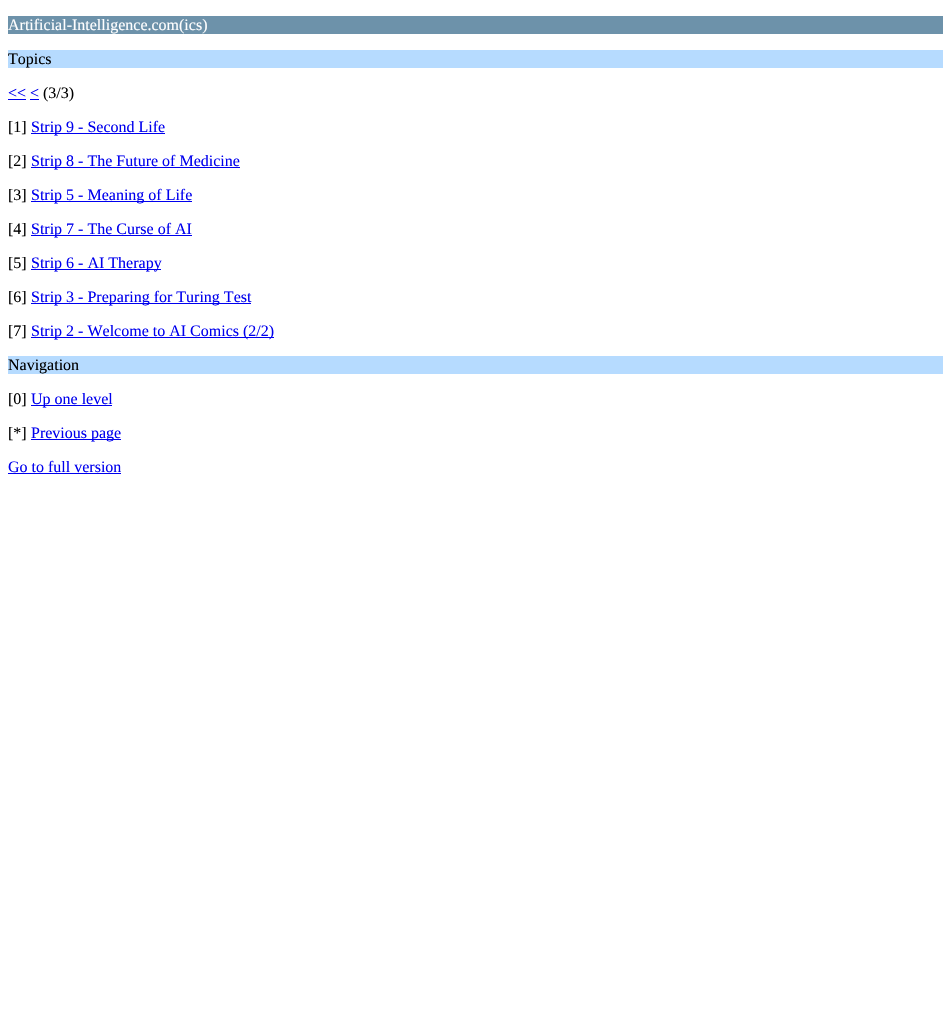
void draw(SkCanvas* canvas) {
	SkPaint paint;
	paint.setAntiAlias(true);
	canvas->clear(0xffffffff);
	paint.setColor(0xff6d92aa);
	canvas->drawRect(SkRect::MakeXYWH(8, 16, 935, 18), paint);
	SkFont f1(fontMgr->matchFamilyStyle("Liberation Serif", SkFontStyle::Normal()), 16);
	f1.setSubpixel(true);
	paint.setColor(0xffffffff);
	canvas->drawString("Artificial-Intelligence.com(ics)", 8, 30, f1, paint);
	paint.setColor(0xffb6dbff);
	canvas->drawRect(SkRect::MakeXYWH(8, 50, 935, 18), paint);
	paint.setColor(0xff000000);
	canvas->drawString("Topics", 8, 64, f1, paint);
	paint.setColor(0xff0000ee);
	canvas->drawString("<< <", 8, 98, f1, paint);
	canvas->drawRect(SkRect::MakeXYWH(8, 99, 18, 1), paint);
	paint.setColor(0xff000000);
	canvas->drawString("(3/3)", 43, 98, f1, paint);
	paint.setColor(0xff0000ee);
	canvas->drawRect(SkRect::MakeXYWH(30, 99, 9, 1), paint);
	paint.setColor(0xff000000);
	canvas->drawString("[1]", 8, 132, f1, paint);
	paint.setColor(0xff0000ee);
	canvas->drawRect(SkRect::MakeXYWH(31, 133, 134, 1), paint);
	canvas->drawString("Strip 9 - Second Life", 31, 132, f1, paint);
	paint.setColor(0xff000000);
	canvas->drawString("[2]", 8, 166, f1, paint);
	paint.setColor(0xff0000ee);
	canvas->drawRect(SkRect::MakeXYWH(31, 167, 209, 1), paint);
	canvas->drawString("Strip 8 - The Future of Medicine", 31, 166, f1, paint);
	paint.setColor(0xff000000);
	canvas->drawString("[3]", 8, 200, f1, paint);
	paint.setColor(0xff0000ee);
	canvas->drawRect(SkRect::MakeXYWH(31, 201, 161, 1), paint);
	canvas->drawString("Strip 5 - Meaning of Life", 31, 200, f1, paint);
	paint.setColor(0xff000000);
	canvas->drawString("[4]", 8, 234, f1, paint);
	paint.setColor(0xff0000ee);
	canvas->drawRect(SkRect::MakeXYWH(31, 235, 161, 1), paint);
	canvas->drawString("Strip 7 - The Curse of AI", 31, 234, f1, paint);
	paint.setColor(0xff000000);
	canvas->drawString("[5]", 8, 268, f1, paint);
	paint.setColor(0xff0000ee);
	canvas->drawRect(SkRect::MakeXYWH(31, 269, 130, 1), paint);
	canvas->drawString("Strip 6 - AI Therapy", 31, 268, f1, paint);
	paint.setColor(0xff000000);
	canvas->drawString("[6]", 8, 302, f1, paint);
	paint.setColor(0xff0000ee);
	canvas->drawRect(SkRect::MakeXYWH(31, 303, 220, 1), paint);
	canvas->drawString("Strip 3 - Preparing for Turing Test", 31, 302, f1, paint);
	paint.setColor(0xff000000);
	canvas->drawString("[7]", 8, 336, f1, paint);
	paint.setColor(0xff0000ee);
	canvas->drawRect(SkRect::MakeXYWH(31, 337, 243, 1), paint);
	canvas->drawString("Strip 2 - Welcome to AI Comics (2/2)", 31, 336, f1, paint);
	paint.setColor(0xffb6dbff);
	canvas->drawRect(SkRect::MakeXYWH(8, 356, 935, 18), paint);
	paint.setColor(0xff000000);
	canvas->drawString("Navigation", 8, 370, f1, paint);
	canvas->drawString("[0]", 8, 404, f1, paint);
	paint.setColor(0xff0000ee);
	canvas->drawRect(SkRect::MakeXYWH(31, 405, 81, 1), paint);
	canvas->drawString("Up one level", 31, 404, f1, paint);
	paint.setColor(0xff000000);
	canvas->drawString("[*]", 8, 438, f1, paint);
	paint.setColor(0xff0000ee);
	canvas->drawRect(SkRect::MakeXYWH(31, 439, 90, 1), paint);
	canvas->drawString("Previous page", 31, 438, f1, paint);
	canvas->drawString("Go to full version", 8, 472, f1, paint);
	canvas->drawRect(SkRect::MakeXYWH(8, 473, 113, 1), paint);
}
